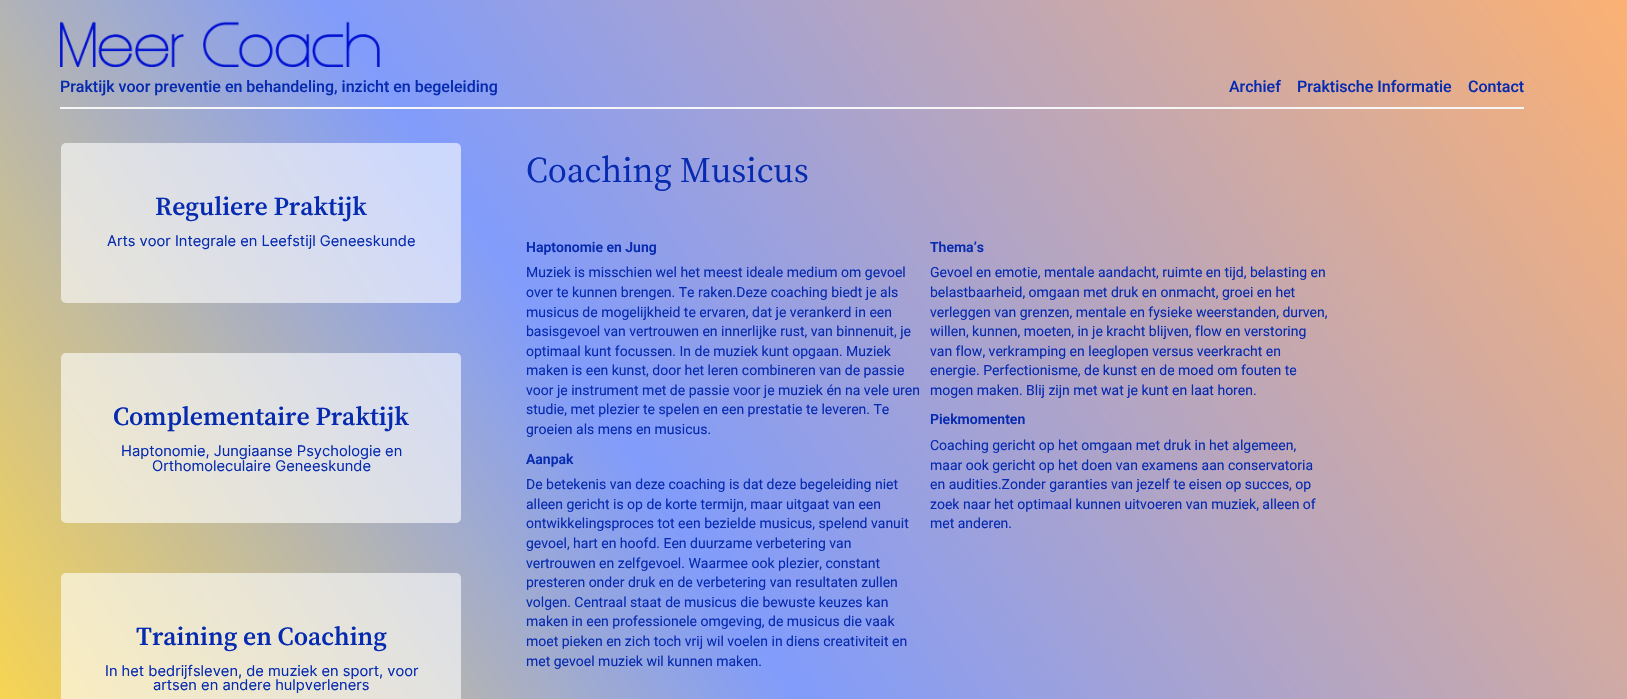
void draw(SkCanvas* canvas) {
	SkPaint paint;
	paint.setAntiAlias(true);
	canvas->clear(0xffffffff);
	{
		const SkColor colors[] = {0xfffbb173, 0xff819cfb, 0xfffdd74b};
		const float stops[] = {0, 0.56, 0.92};
		const SkPoint ends[] = {{1612, -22}, {15, 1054}};
		paint.setShader(SkGradientShader::MakeLinear(ends, colors, stops, 3, SkTileMode::kClamp));
		paint.setAlpha(255);
	}
	canvas->drawRect(SkRect::MakeXYWH(0, 0, 1627, 699), paint);
	canvas->drawImageRect(SkImages::DeferredFromEncodedData(SkData::MakeFromFileName("img1.png")), SkRect::MakeXYWH(60, 21, 320, 46), SkSamplingOptions());
	SkFont f1(fontMgr->matchFamilyStyle("Roboto", SkFontStyle(500, SkFontStyle::kNormal_Width, SkFontStyle::kUpright_Slant)), 16);
	f1.setSubpixel(true);
	paint.setShader(nullptr);
	paint.setColor(0xff072bb0);
	canvas->drawString("Praktijk voor preventie en behandeling, inzicht en begeleiding", 60, 92, f1, paint);
	canvas->drawString("Archief", 1229, 92, f1, paint);
	canvas->drawString("Praktische Informatie", 1297, 92, f1, paint);
	canvas->drawString("Contact", 1468, 92, f1, paint);
	paint.setColor(0xfff6f6f6);
	canvas->drawRect(SkRect::MakeXYWH(60, 107, 1464, 2), paint);
	paint.setColor(0x99ffffff);
	canvas->drawRoundRect(SkRect::MakeXYWH(61, 143, 400, 160), 5, 5, paint);
	SkFont f2(fontMgr->matchFamilyStyle("Source Serif 4", SkFontStyle(600, SkFontStyle::kNormal_Width, SkFontStyle::kUpright_Slant)), 26);
	f2.setSubpixel(true);
	paint.setColor(0xff072bb0);
	canvas->drawString("Reguliere Praktijk", 155, 215, f2, paint);
	SkFont f3(fontMgr->matchFamilyStyle("Inter", SkFontStyle::Normal()), 14.7);
	f3.setSubpixel(true);
	canvas->drawString("Arts voor Integrale en Leefstijl Geneeskunde", 107, 246, f3, paint);
	paint.setColor(0x99ffffff);
	canvas->drawRoundRect(SkRect::MakeXYWH(61, 353, 400, 170), 5, 5, paint);
	paint.setColor(0xff072bb0);
	canvas->drawString("Complementaire Praktijk", 113, 425, f2, paint);
	canvas->drawString("Haptonomie, Jungiaanse Psychologie en", 121, 456, f3, paint);
	canvas->drawString("Orthomoleculaire Geneeskunde", 152, 471, f3, paint);
	paint.setColor(0x99ffffff);
	canvas->drawRoundRect(SkRect::MakeXYWH(61, 573, 400, 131), 5, 5, paint);
	paint.setColor(0xff072bb0);
	canvas->drawString("Training en Coaching", 136, 645, f2, paint);
	canvas->drawString("In het bedrijfsleven, de muziek en sport, voor", 105, 676, f3, paint);
	canvas->drawString("artsen en andere hulpverleners", 153, 690, f3, paint);
	SkFont f4(fontMgr->matchFamilyStyle("Source Serif 4", SkFontStyle::Normal()), 36);
	f4.setSubpixel(true);
	canvas->drawString("Coaching Musicus", 526, 182, f4, paint);
	SkFont f5(fontMgr->matchFamilyStyle("Roboto", SkFontStyle(600, SkFontStyle::kNormal_Width, SkFontStyle::kUpright_Slant)), 14);
	f5.setSubpixel(true);
	canvas->drawString("Haptonomie en Jung", 526, 252, f5, paint);
	SkFont f6(fontMgr->matchFamilyStyle("Roboto", SkFontStyle::Normal()), 14);
	f6.setSubpixel(true);
	canvas->drawString("Muziek is misschien wel het meest ideale medium om gevoel", 526, 277, f6, paint);
	canvas->drawString("over te kunnen brengen. Te raken.Deze coaching biedt je als", 526, 297, f6, paint);
	canvas->drawString("musicus de mogelijkheid te ervaren, dat je verankerd in een", 526, 317, f6, paint);
	canvas->drawString("basisgevoel van vertrouwen en innerlijke rust, van binnenuit, je", 526, 336, f6, paint);
	canvas->drawString("optimaal kunt focussen. In de muziek kunt opgaan. Muziek", 526, 356, f6, paint);
	canvas->drawString("maken is een kunst, door het leren combineren van de passie", 526, 375, f6, paint);
	canvas->drawString("voor je instrument met de passie voor je muziek én na vele uren", 526, 395, f6, paint);
	canvas->drawString("studie, met plezier te spelen en een prestatie te leveren. Te", 526, 414, f6, paint);
	canvas->drawString("groeien als mens en musicus.", 526, 434, f6, paint);
	canvas->drawString("Aanpak", 526, 464, f5, paint);
	canvas->drawString("De betekenis van deze coaching is dat deze begeleiding niet", 526, 489, f6, paint);
	canvas->drawString("alleen gericht is op de korte termijn, maar uitgaat van een", 526, 509, f6, paint);
	canvas->drawString("ontwikkelingsproces tot een bezielde musicus, spelend vanuit", 526, 528, f6, paint);
	canvas->drawString("gevoel, hart en hoofd. Een duurzame verbetering van", 526, 548, f6, paint);
	canvas->drawString("vertrouwen en zelfgevoel. Waarmee ook plezier, constant", 526, 568, f6, paint);
	canvas->drawString("presteren onder druk en de verbetering van resultaten zullen", 526, 587, f6, paint);
	canvas->drawString("volgen. Centraal staat de musicus die bewuste keuzes kan", 526, 607, f6, paint);
	canvas->drawString("maken in een professionele omgeving, de musicus die vaak", 526, 626, f6, paint);
	canvas->drawString("moet pieken en zich toch vrij wil voelen in diens creativiteit en", 526, 646, f6, paint);
	canvas->drawString("met gevoel muziek wil kunnen maken.", 526, 666, f6, paint);
	canvas->drawString("Thema’s", 930, 252, f5, paint);
	canvas->drawString("Gevoel en emotie, mentale aandacht, ruimte en tijd, belasting en", 930, 277, f6, paint);
	canvas->drawString("belastbaarheid, omgaan met druk en onmacht, groei en het", 930, 297, f6, paint);
	canvas->drawString("verleggen van grenzen, mentale en fysieke weerstanden, durven,", 930, 317, f6, paint);
	canvas->drawString("willen, kunnen, moeten, in je kracht blijven, flow en verstoring", 930, 336, f6, paint);
	canvas->drawString("van flow, verkramping en leeglopen versus veerkracht en", 930, 356, f6, paint);
	canvas->drawString("energie. Perfectionisme, de kunst en de moed om fouten te", 930, 375, f6, paint);
	canvas->drawString("mogen maken. Blij zijn met wat je kunt en laat horen.", 930, 395, f6, paint);
	canvas->drawString("Piekmomenten", 930, 424, f5, paint);
	canvas->drawString("Coaching gericht op het omgaan met druk in het algemeen,", 930, 450, f6, paint);
	canvas->drawString("maar ook gericht op het doen van examens aan conservatoria", 930, 470, f6, paint);
	canvas->drawString("en audities.Zonder garanties van jezelf te eisen op succes, op", 930, 489, f6, paint);
	canvas->drawString("zoek naar het optimaal kunnen uitvoeren van muziek, alleen of", 930, 509, f6, paint);
	canvas->drawString("met anderen.", 930, 528, f6, paint);
}
